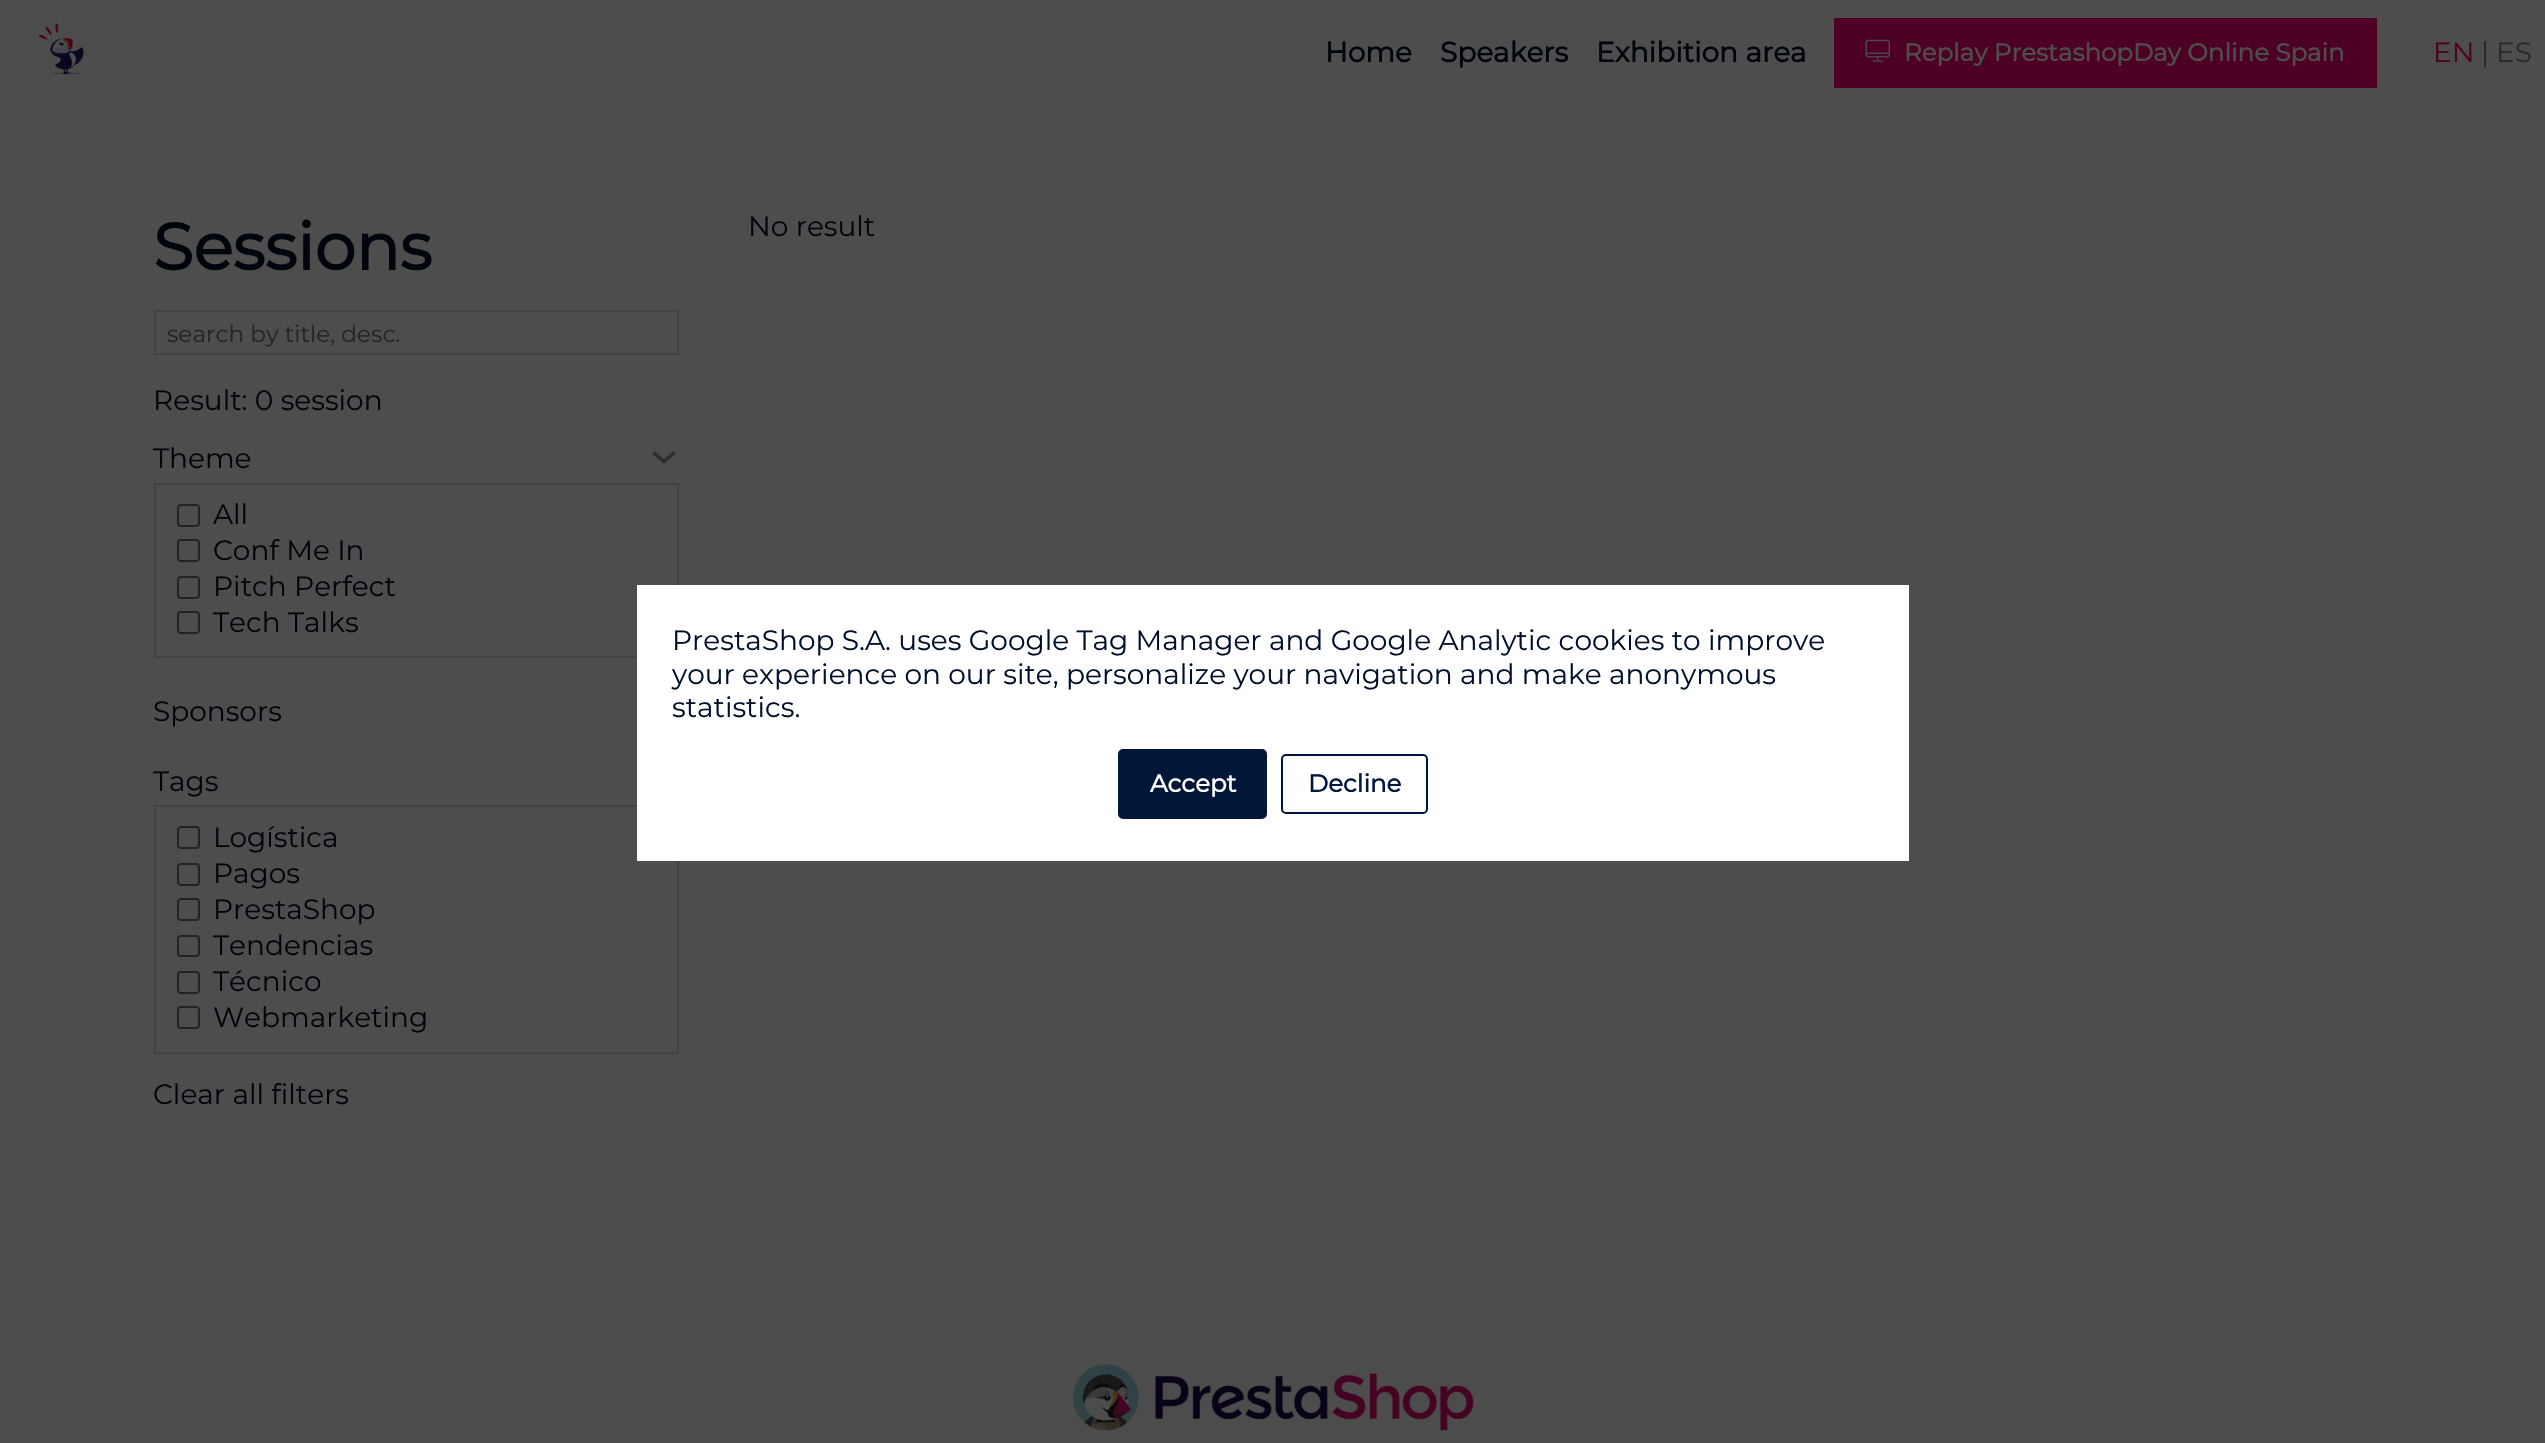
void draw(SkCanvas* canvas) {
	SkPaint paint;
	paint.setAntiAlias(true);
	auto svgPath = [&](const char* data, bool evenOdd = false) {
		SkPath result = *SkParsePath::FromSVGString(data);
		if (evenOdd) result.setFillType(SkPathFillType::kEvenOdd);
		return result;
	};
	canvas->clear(0xff4d4d4d);
	canvas->drawImageRect(SkImages::DeferredFromEncodedData(SkData::MakeFromFileName("img1.png")), SkRect::MakeXYWH(38, 23, 46, 52), SkSamplingOptions());
	SkFont f1(fontMgr->matchFamilyStyle("Montserrat", SkFontStyle::Bold()), 28);
	f1.setSubpixel(true);
	paint.setColor(0xff00050d);
	canvas->drawString("Home", 1325, 62, f1, paint);
	canvas->drawString("Speakers", 1440, 62, f1, paint);
	canvas->drawString("Exhibition area", 1596, 62, f1, paint);
	paint.setColor(0xff4d0023);
	canvas->drawRect(SkRect::MakeXYWH(1834, 18, 543, 70), paint);
	canvas->drawImageRect(SkImages::DeferredFromEncodedData(SkData::MakeFromFileName("img2.png")), SkRect::MakeXYWH(1865, 39, 25, 23), SkSamplingOptions());
	SkFont f2(fontMgr->matchFamilyStyle("Montserrat", SkFontStyle::Bold()), 24.5);
	f2.setSubpixel(true);
	paint.setColor(0xff4d4d4d);
	canvas->drawString("Replay PrestashopDay Online Spain", 1904, 61, f2, paint);
	SkFont f3(fontMgr->matchFamilyStyle("Montserrat", SkFontStyle(100, SkFontStyle::kNormal_Width, SkFontStyle::kUpright_Slant)), 28);
	f3.setSubpixel(true);
	paint.setColor(0xff4d0023);
	canvas->drawString("EN", 2433, 62, f3, paint);
	paint.setColor(0xff26292d);
	canvas->drawString("|", 2481, 62, f3, paint);
	canvas->drawString("ES", 2496, 62, f3, paint);
	SkFont f4(fontMgr->matchFamilyStyle("Montserrat", SkFontStyle::Bold()), 65.5);
	f4.setSubpixel(true);
	paint.setColor(0xff00050d);
	canvas->drawString("Sessions", 153, 270, f4, paint);
	paint.setStroke(true);
	paint.setStrokeWidth(2);
	paint.setColor(0xff424242);
	canvas->drawRect(SkRect::MakeXYWH(155, 311, 523, 43), paint);
	SkFont f5(fontMgr->matchFamilyStyle("Montserrat", SkFontStyle(100, SkFontStyle::kNormal_Width, SkFontStyle::kUpright_Slant)), 23.25);
	f5.setSubpixel(true);
	paint.setStroke(false);
	paint.setColor(0xff232323);
	canvas->drawString("search by title, desc.", 167, 342, f5, paint);
	paint.setColor(0xff00050d);
	canvas->drawString("Result: 0 session", 153, 410, f3, paint);
	canvas->drawString("Theme", 153, 468, f3, paint);
	paint.setColor(0xff2e2e2e);
	canvas->drawPath(svgPath("M675 453L673 451L664 459L654.5 451L652 454L664 464L675.5 454Z"), paint);
	paint.setStroke(true);
	paint.setColor(0xff424242);
	canvas->drawRect(SkRect::MakeXYWH(155, 484, 523, 173), paint);
	paint.setColor(0xff232323);
	canvas->drawRoundRect(SkRect::MakeXYWH(178, 505, 21, 21), 3, 3, paint);
	paint.setStroke(false);
	paint.setColor(0xff00050d);
	canvas->drawString("All", 213, 524, f3, paint);
	paint.setStroke(true);
	paint.setColor(0xff232323);
	canvas->drawRoundRect(SkRect::MakeXYWH(178, 540, 21, 21), 3, 3, paint);
	paint.setStroke(false);
	paint.setColor(0xff00050d);
	canvas->drawString("Conf Me In", 213, 560, f3, paint);
	paint.setStroke(true);
	paint.setColor(0xff232323);
	canvas->drawRoundRect(SkRect::MakeXYWH(178, 577, 21, 21), 3, 3, paint);
	paint.setStroke(false);
	paint.setColor(0xff00050d);
	canvas->drawString("Pitch Perfect", 213, 596, f3, paint);
	paint.setStroke(true);
	paint.setColor(0xff232323);
	canvas->drawRoundRect(SkRect::MakeXYWH(178, 612, 21, 21), 3, 3, paint);
	paint.setStroke(false);
	paint.setColor(0xff00050d);
	canvas->drawString("Tech Talks", 213, 632, f3, paint);
	canvas->drawString("Sponsors", 153, 721, f3, paint);
	canvas->drawString("Tags", 153, 791, f3, paint);
	paint.setStroke(true);
	paint.setColor(0xff424242);
	canvas->drawRect(SkRect::MakeXYWH(155, 806, 523, 247), paint);
	paint.setColor(0xff232323);
	canvas->drawRoundRect(SkRect::MakeXYWH(178, 827, 21, 21), 3, 3, paint);
	paint.setStroke(false);
	paint.setColor(0xff00050d);
	canvas->drawString("Logística", 213, 847, f3, paint);
	paint.setStroke(true);
	paint.setColor(0xff232323);
	canvas->drawRoundRect(SkRect::MakeXYWH(178, 864, 21, 21), 3, 3, paint);
	paint.setStroke(false);
	paint.setColor(0xff00050d);
	canvas->drawString("Pagos", 213, 883, f3, paint);
	paint.setStroke(true);
	paint.setColor(0xff232323);
	canvas->drawRoundRect(SkRect::MakeXYWH(178, 899, 21, 21), 3, 3, paint);
	paint.setStroke(false);
	paint.setColor(0xff00050d);
	canvas->drawString("PrestaShop", 213, 919, f3, paint);
	paint.setStroke(true);
	paint.setColor(0xff232323);
	canvas->drawRoundRect(SkRect::MakeXYWH(178, 936, 21, 20), 3, 3, paint);
	paint.setStroke(false);
	paint.setColor(0xff00050d);
	canvas->drawString("Tendencias", 213, 955, f3, paint);
	paint.setStroke(true);
	paint.setColor(0xff232323);
	canvas->drawRoundRect(SkRect::MakeXYWH(178, 972, 21, 21), 3, 3, paint);
	paint.setStroke(false);
	paint.setColor(0xff00050d);
	canvas->drawString("Técnico", 213, 991, f3, paint);
	paint.setStroke(true);
	paint.setColor(0xff232323);
	canvas->drawRoundRect(SkRect::MakeXYWH(178, 1007, 21, 21), 3, 3, paint);
	paint.setStroke(false);
	paint.setColor(0xff00050d);
	canvas->drawString("Webmarketing", 213, 1027, f3, paint);
	canvas->drawString("Clear all filters", 153, 1104, f3, paint);
	canvas->drawString("No result", 748, 236, f3, paint);
	canvas->drawImageRect(SkImages::DeferredFromEncodedData(SkData::MakeFromFileName("img3.png")), SkRect::MakeXYWH(1073, 1364, 401, 67), SkSamplingOptions());
	paint.setColor(0xffffffff);
	canvas->drawRect(SkRect::MakeXYWH(637, 585, 1272, 276), paint);
	paint.setColor(0xff00102a);
	canvas->drawString("PrestaShop S.A. uses Google Tag Manager and Google Analytic cookies to improve", 672, 650, f3, paint);
	canvas->drawString("your experience on our site, personalize your navigation and make anonymous", 672, 684, f3, paint);
	canvas->drawString("statistics.", 672, 717, f3, paint);
	paint.setColor(0xff011638);
	canvas->drawRoundRect(SkRect::MakeXYWH(1121.5, 752.5, 142, 63), 1.5, 1.5, paint);
	paint.setStroke(true);
	paint.setStrokeWidth(7);
	canvas->drawRoundRect(SkRect::MakeXYWH(1121.5, 752.5, 142, 63), 1.5, 1.5, paint);
	paint.setStroke(false);
	paint.setColor(0xffffffff);
	canvas->drawString("Accept", 1150, 792, f2, paint);
	paint.setStroke(true);
	paint.setStrokeWidth(2);
	paint.setColor(0xff001740);
	canvas->drawRoundRect(SkRect::MakeXYWH(1282, 755, 145, 58), 4, 4, paint);
	paint.setStroke(false);
	canvas->drawString("Decline", 1308, 792, f2, paint);
}
